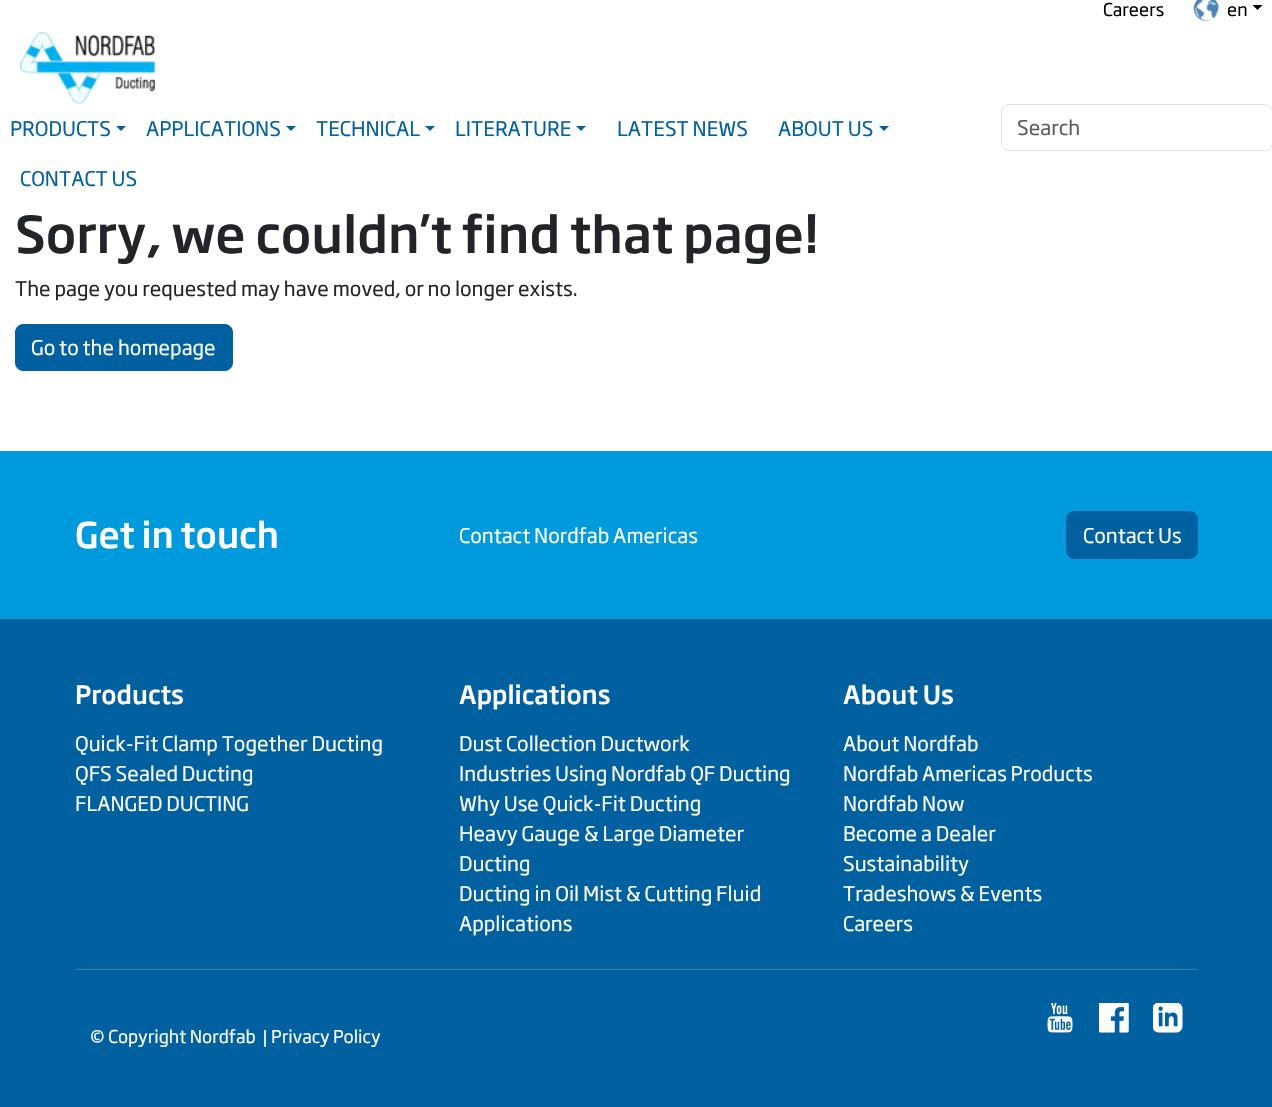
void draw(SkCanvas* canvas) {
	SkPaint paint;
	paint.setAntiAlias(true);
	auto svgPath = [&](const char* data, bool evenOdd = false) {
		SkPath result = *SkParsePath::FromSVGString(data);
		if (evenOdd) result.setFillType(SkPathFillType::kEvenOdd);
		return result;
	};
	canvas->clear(0xffffffff);
	SkFont f1(fontMgr->matchFamilyStyle("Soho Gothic", SkFontStyle::Normal()), 17.5);
	f1.setSubpixel(true);
	paint.setColor(0xff000000);
	canvas->drawString("Careers", 1103, 16, f1, paint);
	canvas->drawImageRect(SkImages::DeferredFromEncodedData(SkData::MakeFromFileName("img1.png")), SkRect::MakeXYWH(1193, 0, 26, 21), SkSamplingOptions());
	canvas->drawString("en", 1227, 16, f1, paint);
	canvas->drawPath(svgPath("M1252.5 5H1262.5L1257.5 10Z"), paint);
	canvas->drawImageRect(SkImages::DeferredFromEncodedData(SkData::MakeFromFileName("img2.png")), SkRect::MakeXYWH(20, 32, 135, 72), SkSamplingOptions());
	SkFont f2(fontMgr->matchFamilyStyle("Soho Gothic", SkFontStyle::Normal()), 20);
	f2.setSubpixel(true);
	paint.setColor(0xff0060a0);
	canvas->drawString("PRODUCTS", 10, 136, f2, paint);
	canvas->drawPath(svgPath("M116 126H126L121 131Z"), paint);
	canvas->drawString("APPLICATIONS", 146, 136, f2, paint);
	canvas->drawPath(svgPath("M286 126H296L291 131Z"), paint);
	canvas->drawString("TECHNICAL", 316, 136, f2, paint);
	canvas->drawPath(svgPath("M425 126H435L430 131Z"), paint);
	canvas->drawString("LITERATURE", 455, 136, f2, paint);
	canvas->drawPath(svgPath("M576 126H586L581 131Z"), paint);
	canvas->drawString("LATEST NEWS", 617, 136, f2, paint);
	canvas->drawString("ABOUT US", 778, 136, f2, paint);
	canvas->drawPath(svgPath("M879 126H889L884 131Z"), paint);
	canvas->drawString("CONTACT US", 20, 186, f2, paint);
	paint.setStroke(true);
	paint.setStrokeWidth(1);
	paint.setColor(0xffdee2e6);
	canvas->drawRoundRect(SkRect::MakeXYWH(1001.5, 104.5, 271, 46), 7.5, 7.5, paint);
	paint.setStroke(false);
	paint.setColor(0xff595c5f);
	canvas->drawString("Search", 1017, 135, f2, paint);
	SkFont f3(fontMgr->matchFamilyStyle("Soho Gothic", SkFontStyle(500, SkFontStyle::kNormal_Width, SkFontStyle::kUpright_Slant)), 50);
	f3.setSubpixel(true);
	paint.setColor(0xff212529);
	canvas->drawString("Sorry, we couldn’t find that page!", 15, 253, f3, paint);
	canvas->drawString("The page you requested may have moved, or no longer exists.", 15, 296, f2, paint);
	paint.setColor(0xff0060a0);
	canvas->drawRoundRect(SkRect::MakeXYWH(15.5, 324.5, 217, 46), 7.5, 7.5, paint);
	paint.setStroke(true);
	canvas->drawRoundRect(SkRect::MakeXYWH(15.5, 324.5, 217, 46), 7.5, 7.5, paint);
	paint.setStroke(false);
	paint.setColor(0xffffffff);
	canvas->drawString("Go to the homepage", 31, 355, f2, paint);
	paint.setColor(0xff009add);
	canvas->drawRect(SkRect::MakeXYWH(0, 451, 1272, 168), paint);
	SkFont f4(fontMgr->matchFamilyStyle("Soho Gothic", SkFontStyle(500, SkFontStyle::kNormal_Width, SkFontStyle::kUpright_Slant)), 35);
	f4.setSubpixel(true);
	paint.setColor(0xffffffff);
	canvas->drawString("Get in touch", 75, 548, f4, paint);
	canvas->drawString("Contact Nordfab Americas", 459, 543, f2, paint);
	paint.setColor(0xff0060a0);
	canvas->drawRoundRect(SkRect::MakeXYWH(1066.5, 511.5, 131, 47), 7.5, 7.5, paint);
	paint.setStroke(true);
	canvas->drawRoundRect(SkRect::MakeXYWH(1066.5, 511.5, 131, 47), 7.5, 7.5, paint);
	paint.setStroke(false);
	paint.setColor(0xffffffff);
	canvas->drawString("Contact Us", 1083, 543, f2, paint);
	paint.setColor(0xff0060a0);
	canvas->drawRect(SkRect::MakeXYWH(0, 619, 1272, 488), paint);
	SkFont f5(fontMgr->matchFamilyStyle("Soho Gothic", SkFontStyle(500, SkFontStyle::kNormal_Width, SkFontStyle::kUpright_Slant)), 25);
	f5.setSubpixel(true);
	paint.setColor(0xffffffff);
	canvas->drawString("Products", 75, 704, f5, paint);
	canvas->drawString("Quick-Fit Clamp Together Ducting", 75, 751, f2, paint);
	canvas->drawString("QFS Sealed Ducting", 75, 781, f2, paint);
	canvas->drawString("FLANGED DUCTING", 75, 811, f2, paint);
	canvas->drawString("Applications", 459, 704, f5, paint);
	canvas->drawString("Dust Collection Ductwork", 459, 751, f2, paint);
	canvas->drawString("Industries Using Nordfab QF Ducting", 459, 781, f2, paint);
	canvas->drawString("Why Use Quick-Fit Ducting", 459, 811, f2, paint);
	canvas->drawString("Heavy Gauge & Large Diameter", 459, 841, f2, paint);
	canvas->drawString("Ducting", 459, 871, f2, paint);
	canvas->drawString("Ducting in Oil Mist & Cutting Fluid", 459, 901, f2, paint);
	canvas->drawString("Applications", 459, 931, f2, paint);
	canvas->drawString("About Us", 843, 704, f5, paint);
	canvas->drawString("About Nordfab", 843, 751, f2, paint);
	canvas->drawString("Nordfab Americas Products", 843, 781, f2, paint);
	canvas->drawString("Nordfab Now", 843, 811, f2, paint);
	canvas->drawString("Become a Dealer", 843, 841, f2, paint);
	canvas->drawString("Sustainability", 843, 871, f2, paint);
	canvas->drawString("Tradeshows & Events", 843, 901, f2, paint);
	canvas->drawString("Careers", 843, 931, f2, paint);
	paint.setColor(0xff3380b3);
	canvas->drawRect(SkRect::MakeXYWH(75, 969, 1123, 1), paint);
	canvas->drawImageRect(SkImages::DeferredFromEncodedData(SkData::MakeFromFileName("img3.png")), SkRect::MakeXYWH(1047, 1003, 26, 30), SkSamplingOptions());
	canvas->drawImageRect(SkImages::DeferredFromEncodedData(SkData::MakeFromFileName("img4.png")), SkRect::MakeXYWH(1099, 1003, 30, 30), SkSamplingOptions());
	canvas->drawImageRect(SkImages::DeferredFromEncodedData(SkData::MakeFromFileName("img5.png")), SkRect::MakeXYWH(1153, 1003, 30, 30), SkSamplingOptions());
	paint.setColor(0xffffffff);
	canvas->drawString("© Copyright Nordfab  | Privacy Policy", 90, 1043, f1, paint);
}
